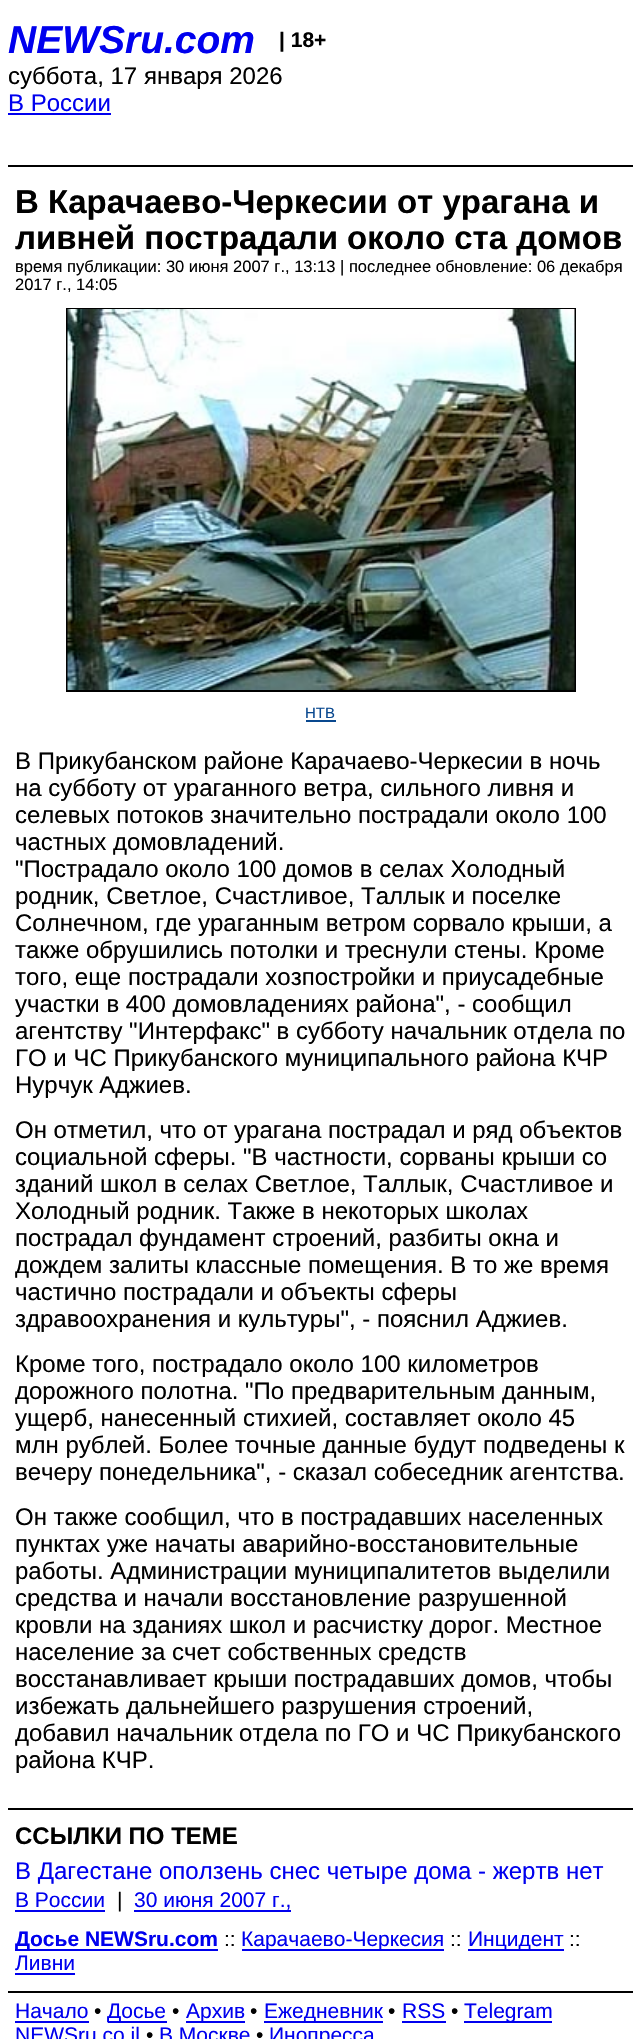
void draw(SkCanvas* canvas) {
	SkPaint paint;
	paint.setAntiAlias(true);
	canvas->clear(0xffffffff);
	paint.setColor(0xff000000);
	canvas->drawRect(SkRect::MakeXYWH(8, 165, 625, 2), paint);
	SkFont f1(fontMgr->matchFamilyStyle("Liberation Sans", SkFontStyle::BoldItalic()), 39);
	f1.setSubpixel(true);
	paint.setColor(0xff0000ee);
	canvas->drawString("NEWSru.com", 8, 53, f1, paint);
	SkFont f2(fontMgr->matchFamilyStyle("Liberation Sans", SkFontStyle::Bold()), 21);
	f2.setSubpixel(true);
	paint.setColor(0xff000000);
	canvas->drawString("| 18+", 279, 47, f2, paint);
	SkFont f3(fontMgr->matchFamilyStyle("Liberation Sans", SkFontStyle::Normal()), 24);
	f3.setSubpixel(true);
	canvas->drawString("суббота, 17 января 2026", 8, 84, f3, paint);
	paint.setColor(0xff0000ee);
	canvas->drawString("В России", 8, 111, f3, paint);
	canvas->drawRect(SkRect::MakeXYWH(8, 113, 103, 2), paint);
	paint.setColor(0xff000000);
	canvas->drawRect(SkRect::MakeXYWH(8, 1808, 625, 2), paint);
	SkFont f4(fontMgr->matchFamilyStyle("Liberation Sans", SkFontStyle::Bold()), 33);
	f4.setSubpixel(true);
	canvas->drawString("В Карачаево-Черкесии от урагана и", 15, 213, f4, paint);
	canvas->drawString("ливней пострадали около ста домов", 15, 249, f4, paint);
	SkFont f5(fontMgr->matchFamilyStyle("Liberation Sans", SkFontStyle::Normal()), 16.5);
	f5.setSubpixel(true);
	canvas->drawString("время публикации: 30 июня 2007 г., 13:13 | последнее обновление: 06 декабря", 15, 272, f5, paint);
	canvas->drawString("2017 г., 14:05", 15, 290, f5, paint);
	paint.setStroke(true);
	paint.setStrokeWidth(2);
	canvas->drawRect(SkRect::MakeXYWH(67, 309, 508, 382), paint);
	canvas->drawImageRect(SkImages::DeferredFromEncodedData(SkData::MakeFromFileName("img1.png")), SkRect::MakeXYWH(67, 309, 508, 381), SkSamplingOptions());
	SkFont f6(fontMgr->matchFamilyStyle("Liberation Sans", SkFontStyle::Normal()), 15);
	f6.setSubpixel(true);
	paint.setStroke(false);
	paint.setColor(0xff09488f);
	canvas->drawString("НТВ", 305, 718, f6, paint);
	canvas->drawRect(SkRect::MakeXYWH(306, 720, 30, 2), paint);
	paint.setColor(0xff000000);
	canvas->drawString("В Прикубанском районе Карачаево-Черкесии в ночь", 15, 769, f3, paint);
	canvas->drawString("на субботу от ураганного ветра, сильного ливня и", 15, 796, f3, paint);
	canvas->drawString("селевых потоков значительно пострадали около 100", 15, 823, f3, paint);
	canvas->drawString("частных домовладений.", 15, 850, f3, paint);
	canvas->drawString("\"Пострадало около 100 домов в селах Холодный", 15, 877, f3, paint);
	canvas->drawString("родник, Светлое, Счастливое, Таллык и поселке", 15, 904, f3, paint);
	canvas->drawString("Солнечном, где ураганным ветром сорвало крыши, а", 15, 931, f3, paint);
	canvas->drawString("также обрушились потолки и треснули стены. Кроме", 15, 958, f3, paint);
	canvas->drawString("того, еще пострадали хозпостройки и приусадебные", 15, 985, f3, paint);
	canvas->drawString("участки в 400 домовладениях района\", - сообщил", 15, 1012, f3, paint);
	canvas->drawString("агентству \"Интерфакс\" в субботу начальник отдела по", 15, 1039, f3, paint);
	canvas->drawString("ГО и ЧС Прикубанского муниципального района КЧР", 15, 1066, f3, paint);
	canvas->drawString("Нурчук Аджиев.", 15, 1093, f3, paint);
	canvas->drawString("Он отметил, что от урагана пострадал и ряд объектов", 15, 1138, f3, paint);
	canvas->drawString("социальной сферы. \"В частности, сорваны крыши со", 15, 1165, f3, paint);
	canvas->drawString("зданий школ в селах Светлое, Таллык, Счастливое и", 15, 1192, f3, paint);
	canvas->drawString("Холодный родник. Также в некоторых школах", 15, 1219, f3, paint);
	canvas->drawString("пострадал фундамент строений, разбиты окна и", 15, 1246, f3, paint);
	canvas->drawString("дождем залиты классные помещения. В то же время", 15, 1273, f3, paint);
	canvas->drawString("частично пострадали и объекты сферы", 15, 1300, f3, paint);
	canvas->drawString("здравоохранения и культуры\", - пояснил Аджиев.", 15, 1327, f3, paint);
	canvas->drawString("Кроме того, пострадало около 100 километров", 15, 1372, f3, paint);
	canvas->drawString("дорожного полотна. \"По предварительным данным,", 15, 1399, f3, paint);
	canvas->drawString("ущерб, нанесенный стихией, составляет около 45", 15, 1426, f3, paint);
	canvas->drawString("млн рублей. Более точные данные будут подведены к", 15, 1453, f3, paint);
	canvas->drawString("вечеру понедельника\", - сказал собеседник агентства.", 15, 1480, f3, paint);
	canvas->drawString("Он также сообщил, что в пострадавших населенных", 15, 1525, f3, paint);
	canvas->drawString("пунктах уже начаты аварийно-восстановительные", 15, 1552, f3, paint);
	canvas->drawString("работы. Администрации муниципалитетов выделили", 15, 1579, f3, paint);
	canvas->drawString("средства и начали восстановление разрушенной", 15, 1606, f3, paint);
	canvas->drawString("кровли на зданиях школ и расчистку дорог. Местное", 15, 1633, f3, paint);
	canvas->drawString("население за счет собственных средств", 15, 1660, f3, paint);
	canvas->drawString("восстанавливает крыши пострадавших домов, чтобы", 15, 1687, f3, paint);
	canvas->drawString("избежать дальнейшего разрушения строений,", 15, 1714, f3, paint);
	canvas->drawString("добавил начальник отдела по ГО и ЧС Прикубанского", 15, 1741, f3, paint);
	canvas->drawString("района КЧР.", 15, 1768, f3, paint);
	SkFont f7(fontMgr->matchFamilyStyle("Liberation Sans", SkFontStyle::Bold()), 24);
	f7.setSubpixel(true);
	canvas->drawString("ССЫЛКИ ПО ТЕМЕ", 15, 1844, f7, paint);
	paint.setColor(0xff0000ee);
	canvas->drawString("В Дагестане оползень снес четыре дома - жертв нет", 15, 1879, f3, paint);
	SkFont f8(fontMgr->matchFamilyStyle("Liberation Sans", SkFontStyle::Normal()), 21);
	f8.setSubpixel(true);
	canvas->drawString("В России", 15, 1907, f8, paint);
	canvas->drawRect(SkRect::MakeXYWH(15, 1910, 90, 2), paint);
	paint.setColor(0xff000000);
	canvas->drawString("|", 117, 1907, f8, paint);
	paint.setColor(0xff0000ee);
	canvas->drawString("30 июня 2007 г.,", 134, 1907, f8, paint);
	canvas->drawRect(SkRect::MakeXYWH(134, 1910, 157, 2), paint);
	canvas->drawRect(SkRect::MakeXYWH(15, 1949, 203, 2), paint);
	canvas->drawString("Досье NEWSru.com", 15, 1946, f2, paint);
	paint.setColor(0xff000000);
	canvas->drawString("::", 224, 1946, f8, paint);
	paint.setColor(0xff0000ee);
	canvas->drawRect(SkRect::MakeXYWH(242, 1949, 202, 2), paint);
	canvas->drawString("Карачаево-Черкесия", 241, 1946, f8, paint);
	paint.setColor(0xff000000);
	canvas->drawString("::", 450, 1946, f8, paint);
	paint.setColor(0xff0000ee);
	canvas->drawRect(SkRect::MakeXYWH(468, 1949, 96, 2), paint);
	canvas->drawString("Инцидент", 468, 1946, f8, paint);
	paint.setColor(0xff000000);
	canvas->drawString("::", 569, 1946, f8, paint);
	paint.setColor(0xff0000ee);
	canvas->drawString("Ливни", 15, 1970, f8, paint);
	canvas->drawRect(SkRect::MakeXYWH(15, 1973, 60, 2), paint);
	paint.setColor(0xff000000);
	canvas->drawRect(SkRect::MakeXYWH(8, 1991, 625, 2), paint);
	paint.setColor(0xff0000ee);
	canvas->drawString("Начало", 15, 2018, f8, paint);
	canvas->drawRect(SkRect::MakeXYWH(15, 2021, 74, 2), paint);
	paint.setColor(0xff000000);
	canvas->drawString("•", 94, 2018, f8, paint);
	paint.setColor(0xff0000ee);
	canvas->drawRect(SkRect::MakeXYWH(108, 2021, 59, 2), paint);
	canvas->drawString("Досье", 107, 2018, f8, paint);
	paint.setColor(0xff000000);
	canvas->drawString("•", 172, 2018, f8, paint);
	paint.setColor(0xff0000ee);
	canvas->drawRect(SkRect::MakeXYWH(186, 2021, 59, 2), paint);
	canvas->drawString("Архив", 186, 2018, f8, paint);
	paint.setColor(0xff000000);
	canvas->drawString("•", 250, 2018, f8, paint);
	paint.setColor(0xff0000ee);
	canvas->drawRect(SkRect::MakeXYWH(264, 2021, 119, 2), paint);
	canvas->drawString("Ежедневник", 264, 2018, f8, paint);
	paint.setColor(0xff000000);
	canvas->drawString("•", 388, 2018, f8, paint);
	paint.setColor(0xff0000ee);
	canvas->drawString("RSS", 402, 2018, f8, paint);
	canvas->drawRect(SkRect::MakeXYWH(402, 2021, 44, 2), paint);
	paint.setColor(0xff000000);
	canvas->drawString("•", 451, 2018, f8, paint);
	paint.setColor(0xff0000ee);
	canvas->drawRect(SkRect::MakeXYWH(464, 2021, 88, 2), paint);
	canvas->drawString("Telegram", 464, 2018, f8, paint);
	canvas->drawString("NEWSru.co.il", 15, 2042, f8, paint);
	paint.setColor(0xff000000);
	canvas->drawString("•", 146, 2042, f8, paint);
	paint.setColor(0xff0000ee);
	canvas->drawString("В Москве", 159, 2042, f8, paint);
	paint.setColor(0xff000000);
	canvas->drawString("•", 256, 2042, f8, paint);
	paint.setColor(0xff0000ee);
	canvas->drawString("Инопресса", 269, 2042, f8, paint);
}
